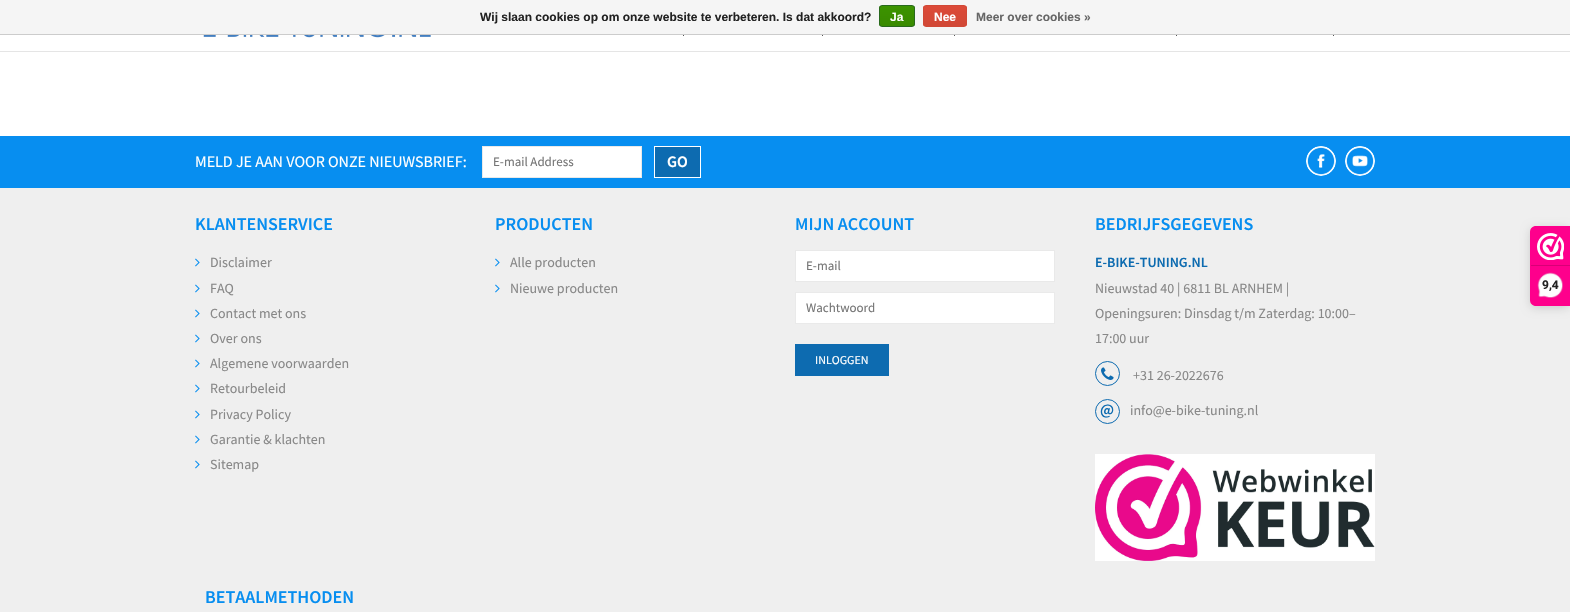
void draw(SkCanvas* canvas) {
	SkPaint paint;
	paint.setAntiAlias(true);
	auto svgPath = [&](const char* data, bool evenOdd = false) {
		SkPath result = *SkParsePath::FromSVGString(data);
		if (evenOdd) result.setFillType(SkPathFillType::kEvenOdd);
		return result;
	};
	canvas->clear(0xffffffff);
	paint.setColor(0xfff5f5f5);
	canvas->drawRect(SkRect::MakeXYWH(0, 0, 1570, 34), paint);
	paint.setColor(0xffcccccc);
	canvas->drawRect(SkRect::MakeXYWH(0, 34, 1570, 1), paint);
	SkFont f1(fontMgr->matchFamilyStyle("Liberation Sans", SkFontStyle::Bold()), 12);
	f1.setSubpixel(true);
	paint.setColor(0xff222222);
	canvas->drawString("Wij slaan cookies op om onze website te verbeteren. Is dat akkoord?", 480, 21, f1, paint);
	canvas->save();
	canvas->clipPath(svgPath("M882 5H912C913.5 5 915 6.5 915 8V24C915 25.5 913.5 27 912 27H882C880.5 27 879 25.5 879 24V8C879 6.5 880.5 5 882 5Z"), true);
	{
		const SkColor colors[] = {0xff3c9300, 0xff398a00};
		const float stops[] = {0, 1};
		const SkPoint ends[] = {{897, 6}, {897, 26}};
		paint.setShader(SkGradientShader::MakeLinear(ends, colors, stops, 2, SkTileMode::kClamp));
		paint.setAlpha(255);
	}
	canvas->drawRect(SkRect::MakeXYWH(879, 6, 36, 20), paint);
	canvas->restore();
	paint.setStroke(true);
	paint.setStrokeWidth(1);
	paint.setShader(nullptr);
	paint.setColor(0xff29691d);
	canvas->drawRoundRect(SkRect::MakeXYWH(879.5, 5.5, 35, 21), 2.5, 2.5, paint);
	paint.setStroke(false);
	paint.setColor(0xffffffff);
	canvas->drawString("Ja", 890, 21, f1, paint);
	canvas->save();
	canvas->clipPath(svgPath("M926 5H964C965.5 5 967 6.5 967 8V24C967 25.5 965.5 27 964 27H926C924.5 27 923 25.5 923 24V8C923 6.5 924.5 5 926 5Z"), true);
	{
		const SkColor colors[] = {0xffdc4a38, 0xffd14836};
		const float stops[] = {0, 1};
		const SkPoint ends[] = {{945, 6}, {945, 26}};
		paint.setShader(SkGradientShader::MakeLinear(ends, colors, stops, 2, SkTileMode::kClamp));
		paint.setAlpha(255);
	}
	canvas->drawRect(SkRect::MakeXYWH(923, 6, 44, 20), paint);
	canvas->restore();
	paint.setStroke(true);
	paint.setShader(nullptr);
	paint.setColor(0xffd14836);
	canvas->drawRoundRect(SkRect::MakeXYWH(923.5, 5.5, 43, 21), 2.5, 2.5, paint);
	paint.setStroke(false);
	paint.setColor(0xffffffff);
	canvas->drawString("Nee", 934, 21, f1, paint);
	paint.setColor(0xff666666);
	canvas->drawString("Meer over cookies »", 976, 21, f1, paint);
	paint.setColor(0xffe5e5e5);
	canvas->drawRect(SkRect::MakeXYWH(0, 51, 1570, 1), paint);
	canvas->drawImageRect(SkImages::DeferredFromEncodedData(SkData::MakeFromFileName("img1.png")), SkRect::MakeXYWH(203, 35, 228, 3), SkSamplingOptions());
	paint.setColor(0xff575757);
	canvas->drawRect(SkRect::MakeXYWH(683, 35, 1, 1), paint);
	canvas->drawRect(SkRect::MakeXYWH(822, 35, 1, 1), paint);
	canvas->drawRect(SkRect::MakeXYWH(954, 35, 1, 1), paint);
	canvas->drawRect(SkRect::MakeXYWH(1176, 35, 1, 1), paint);
	canvas->drawRect(SkRect::MakeXYWH(1333, 35, 1, 1), paint);
	paint.setColor(0xffefefef);
	canvas->drawRect(SkRect::MakeXYWH(0, 188, 1570, 424), paint);
	paint.setColor(0xff078ef0);
	canvas->drawRect(SkRect::MakeXYWH(0, 136, 1570, 52), paint);
	SkFont f2(fontMgr->matchFamilyStyle("Source Sans Pro", SkFontStyle::Normal()), 16);
	f2.setSubpixel(true);
	paint.setColor(0xffffffff);
	canvas->drawString("MELD JE AAN VOOR ONZE NIEUWSBRIEF:", 195, 167, f2, paint);
	canvas->drawRect(SkRect::MakeXYWH(482.5, 146.5, 159, 31), paint);
	paint.setStroke(true);
	paint.setColor(0xffe9e9e9);
	canvas->drawRect(SkRect::MakeXYWH(482.5, 146.5, 159, 31), paint);
	SkFont f3(fontMgr->matchFamilyStyle("Source Sans Pro", SkFontStyle::Normal()), 13);
	f3.setSubpixel(true);
	paint.setStroke(false);
	paint.setColor(0xff757575);
	canvas->drawString("E-mail Address", 493, 166, f3, paint);
	paint.setColor(0xff0d6bb0);
	canvas->drawRect(SkRect::MakeXYWH(654.5, 146.5, 46, 31), paint);
	paint.setStroke(true);
	paint.setColor(0xffffffff);
	canvas->drawRect(SkRect::MakeXYWH(654.5, 146.5, 46, 31), paint);
	SkFont f4(fontMgr->matchFamilyStyle("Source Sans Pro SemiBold", SkFontStyle(600, SkFontStyle::kNormal_Width, SkFontStyle::kUpright_Slant)), 16);
	f4.setSubpixel(true);
	paint.setStroke(false);
	canvas->drawString("GO", 667, 167, f4, paint);
	canvas->drawImageRect(SkImages::DeferredFromEncodedData(SkData::MakeFromFileName("img2.png")), SkRect::MakeXYWH(1306, 146, 30, 30), SkSamplingOptions());
	canvas->drawImageRect(SkImages::DeferredFromEncodedData(SkData::MakeFromFileName("img3.png")), SkRect::MakeXYWH(1345, 146, 30, 30), SkSamplingOptions());
	SkFont f5(fontMgr->matchFamilyStyle("Source Sans Pro SemiBold", SkFontStyle(600, SkFontStyle::kNormal_Width, SkFontStyle::kUpright_Slant)), 18);
	f5.setSubpixel(true);
	paint.setColor(0xff078ef0);
	canvas->drawString("KLANTENSERVICE", 195, 230, f5, paint);
	canvas->drawImageRect(SkImages::DeferredFromEncodedData(SkData::MakeFromFileName("img4.png")), SkRect::MakeXYWH(195, 258, 5, 9), SkSamplingOptions());
	SkFont f6(fontMgr->matchFamilyStyle("Source Sans Pro", SkFontStyle::Normal()), 14);
	f6.setSubpixel(true);
	paint.setColor(0xff888888);
	canvas->drawString("Disclaimer", 210, 267, f6, paint);
	canvas->drawImageRect(SkImages::DeferredFromEncodedData(SkData::MakeFromFileName("img4.png")), SkRect::MakeXYWH(195, 284, 5, 9), SkSamplingOptions());
	canvas->drawString("FAQ", 210, 293, f6, paint);
	canvas->drawImageRect(SkImages::DeferredFromEncodedData(SkData::MakeFromFileName("img4.png")), SkRect::MakeXYWH(195, 309, 5, 9), SkSamplingOptions());
	canvas->drawString("Contact met ons", 210, 318, f6, paint);
	canvas->drawImageRect(SkImages::DeferredFromEncodedData(SkData::MakeFromFileName("img4.png")), SkRect::MakeXYWH(195, 334, 5, 9), SkSamplingOptions());
	canvas->drawString("Over ons", 210, 343, f6, paint);
	canvas->drawImageRect(SkImages::DeferredFromEncodedData(SkData::MakeFromFileName("img4.png")), SkRect::MakeXYWH(195, 359, 5, 9), SkSamplingOptions());
	canvas->drawString("Algemene voorwaarden", 210, 368, f6, paint);
	canvas->drawImageRect(SkImages::DeferredFromEncodedData(SkData::MakeFromFileName("img4.png")), SkRect::MakeXYWH(195, 384, 5, 9), SkSamplingOptions());
	canvas->drawString("Retourbeleid", 210, 393, f6, paint);
	canvas->drawImageRect(SkImages::DeferredFromEncodedData(SkData::MakeFromFileName("img4.png")), SkRect::MakeXYWH(195, 410, 5, 9), SkSamplingOptions());
	canvas->drawString("Privacy Policy", 210, 419, f6, paint);
	canvas->drawImageRect(SkImages::DeferredFromEncodedData(SkData::MakeFromFileName("img4.png")), SkRect::MakeXYWH(195, 435, 5, 9), SkSamplingOptions());
	canvas->drawString("Garantie & klachten", 210, 444, f6, paint);
	canvas->drawImageRect(SkImages::DeferredFromEncodedData(SkData::MakeFromFileName("img4.png")), SkRect::MakeXYWH(195, 460, 5, 9), SkSamplingOptions());
	canvas->drawString("Sitemap", 210, 469, f6, paint);
	paint.setColor(0xff078ef0);
	canvas->drawString("PRODUCTEN", 495, 230, f5, paint);
	canvas->drawImageRect(SkImages::DeferredFromEncodedData(SkData::MakeFromFileName("img4.png")), SkRect::MakeXYWH(495, 258, 5, 9), SkSamplingOptions());
	paint.setColor(0xff888888);
	canvas->drawString("Alle producten", 510, 267, f6, paint);
	canvas->drawImageRect(SkImages::DeferredFromEncodedData(SkData::MakeFromFileName("img4.png")), SkRect::MakeXYWH(495, 284, 5, 9), SkSamplingOptions());
	canvas->drawString("Nieuwe producten", 510, 293, f6, paint);
	paint.setColor(0xff078ef0);
	canvas->drawString("MIJN ACCOUNT", 795, 230, f5, paint);
	paint.setColor(0xffffffff);
	canvas->drawRect(SkRect::MakeXYWH(795.5, 250.5, 259, 31), paint);
	paint.setStroke(true);
	paint.setColor(0xffe9e9e9);
	canvas->drawRect(SkRect::MakeXYWH(795.5, 250.5, 259, 31), paint);
	paint.setStroke(false);
	paint.setColor(0xff757575);
	canvas->drawString("E-mail", 806, 270, f3, paint);
	paint.setColor(0xffffffff);
	canvas->drawRect(SkRect::MakeXYWH(795.5, 292.5, 259, 31), paint);
	paint.setStroke(true);
	paint.setColor(0xffeaeaea);
	canvas->drawRect(SkRect::MakeXYWH(795.5, 292.5, 259, 31), paint);
	paint.setStroke(false);
	paint.setColor(0xff757575);
	canvas->drawString("Wachtwoord", 806, 312, f3, paint);
	paint.setColor(0xff0d6bb0);
	canvas->drawRect(SkRect::MakeXYWH(795, 344, 94, 32), paint);
	SkFont f7(fontMgr->matchFamilyStyle("Source Sans Pro", SkFontStyle::Normal()), 12);
	f7.setSubpixel(true);
	paint.setColor(0xffffffff);
	canvas->drawString("INLOGGEN", 815, 364, f7, paint);
	paint.setColor(0xff078ef0);
	canvas->drawString("BEDRIJFSGEGEVENS", 1095, 230, f5, paint);
	SkFont f8(fontMgr->matchFamilyStyle("Source Sans Pro SemiBold", SkFontStyle(600, SkFontStyle::kNormal_Width, SkFontStyle::kUpright_Slant)), 14);
	f8.setSubpixel(true);
	paint.setColor(0xff0d6bb0);
	canvas->drawString("E-BIKE-TUNING.NL", 1095, 267, f8, paint);
	paint.setColor(0xff888888);
	canvas->drawString("Nieuwstad 40 | 6811 BL ARNHEM |", 1095, 293, f6, paint);
	canvas->drawString("Openingsuren: Dinsdag t/m Zaterdag: 10:00–", 1095, 318, f6, paint);
	canvas->drawString("17:00 uur", 1095, 343, f6, paint);
	paint.setStroke(true);
	paint.setColor(0xff0d6bb0);
	canvas->drawCircle(1107.5, 373.5, 12, paint);
	canvas->drawImageRect(SkImages::DeferredFromEncodedData(SkData::MakeFromFileName("img5.png")), SkRect::MakeXYWH(1101, 367, 13, 13), SkSamplingOptions());
	paint.setStroke(false);
	paint.setColor(0xff888888);
	canvas->drawString("+31 26-2022676", 1133, 380, f6, paint);
	paint.setStroke(true);
	paint.setColor(0xff0d6bb0);
	canvas->drawCircle(1107.5, 411.5, 12, paint);
	paint.setStroke(false);
	canvas->drawString("@", 1100, 415, f4, paint);
	paint.setColor(0xff888888);
	canvas->drawString("info@e-bike-tuning.nl", 1130, 415, f6, paint);
	canvas->drawImageRect(SkImages::DeferredFromEncodedData(SkData::MakeFromFileName("img6.png")), SkRect::MakeXYWH(1095, 454, 280, 107), SkSamplingOptions());
	paint.setColor(0xff078ef0);
	canvas->drawString("BETAALMETHODEN", 205, 603, f5, paint);
	paint.setColor(0x26000000);
	paint.setMaskFilter(SkMaskFilter::MakeBlur(kNormal_SkBlurStyle, 5));
	canvas->drawRoundRect(SkRect::MakeXYWH(1530, 228, 40, 80), 6, 6, paint);
	paint.setMaskFilter(nullptr);
	paint.setColor(0xfffe008c);
	canvas->drawPath(svgPath("M1536 226H1570V306H1536C1532.5 306 1530 303.5 1530 300V232C1530 228.5 1532.5 226 1536 226Z"), paint);
	canvas->drawImageRect(SkImages::DeferredFromEncodedData(SkData::MakeFromFileName("img7.png")), SkRect::MakeXYWH(1537, 233, 27, 27), SkSamplingOptions());
	paint.setColor(0xffd80077);
	canvas->drawRect(SkRect::MakeXYWH(1531, 265, 39, 1), paint);
	canvas->drawImageRect(SkImages::DeferredFromEncodedData(SkData::MakeFromFileName("img8.png")), SkRect::MakeXYWH(1537, 272, 26, 26), SkSamplingOptions());
	SkFont f9(fontMgr->matchFamilyStyle("Roboto", SkFontStyle::Bold()), 12);
	f9.setSubpixel(true);
	paint.setColor(0xff222222);
	canvas->drawString("9,4", 1542, 289, f9, paint);
}
